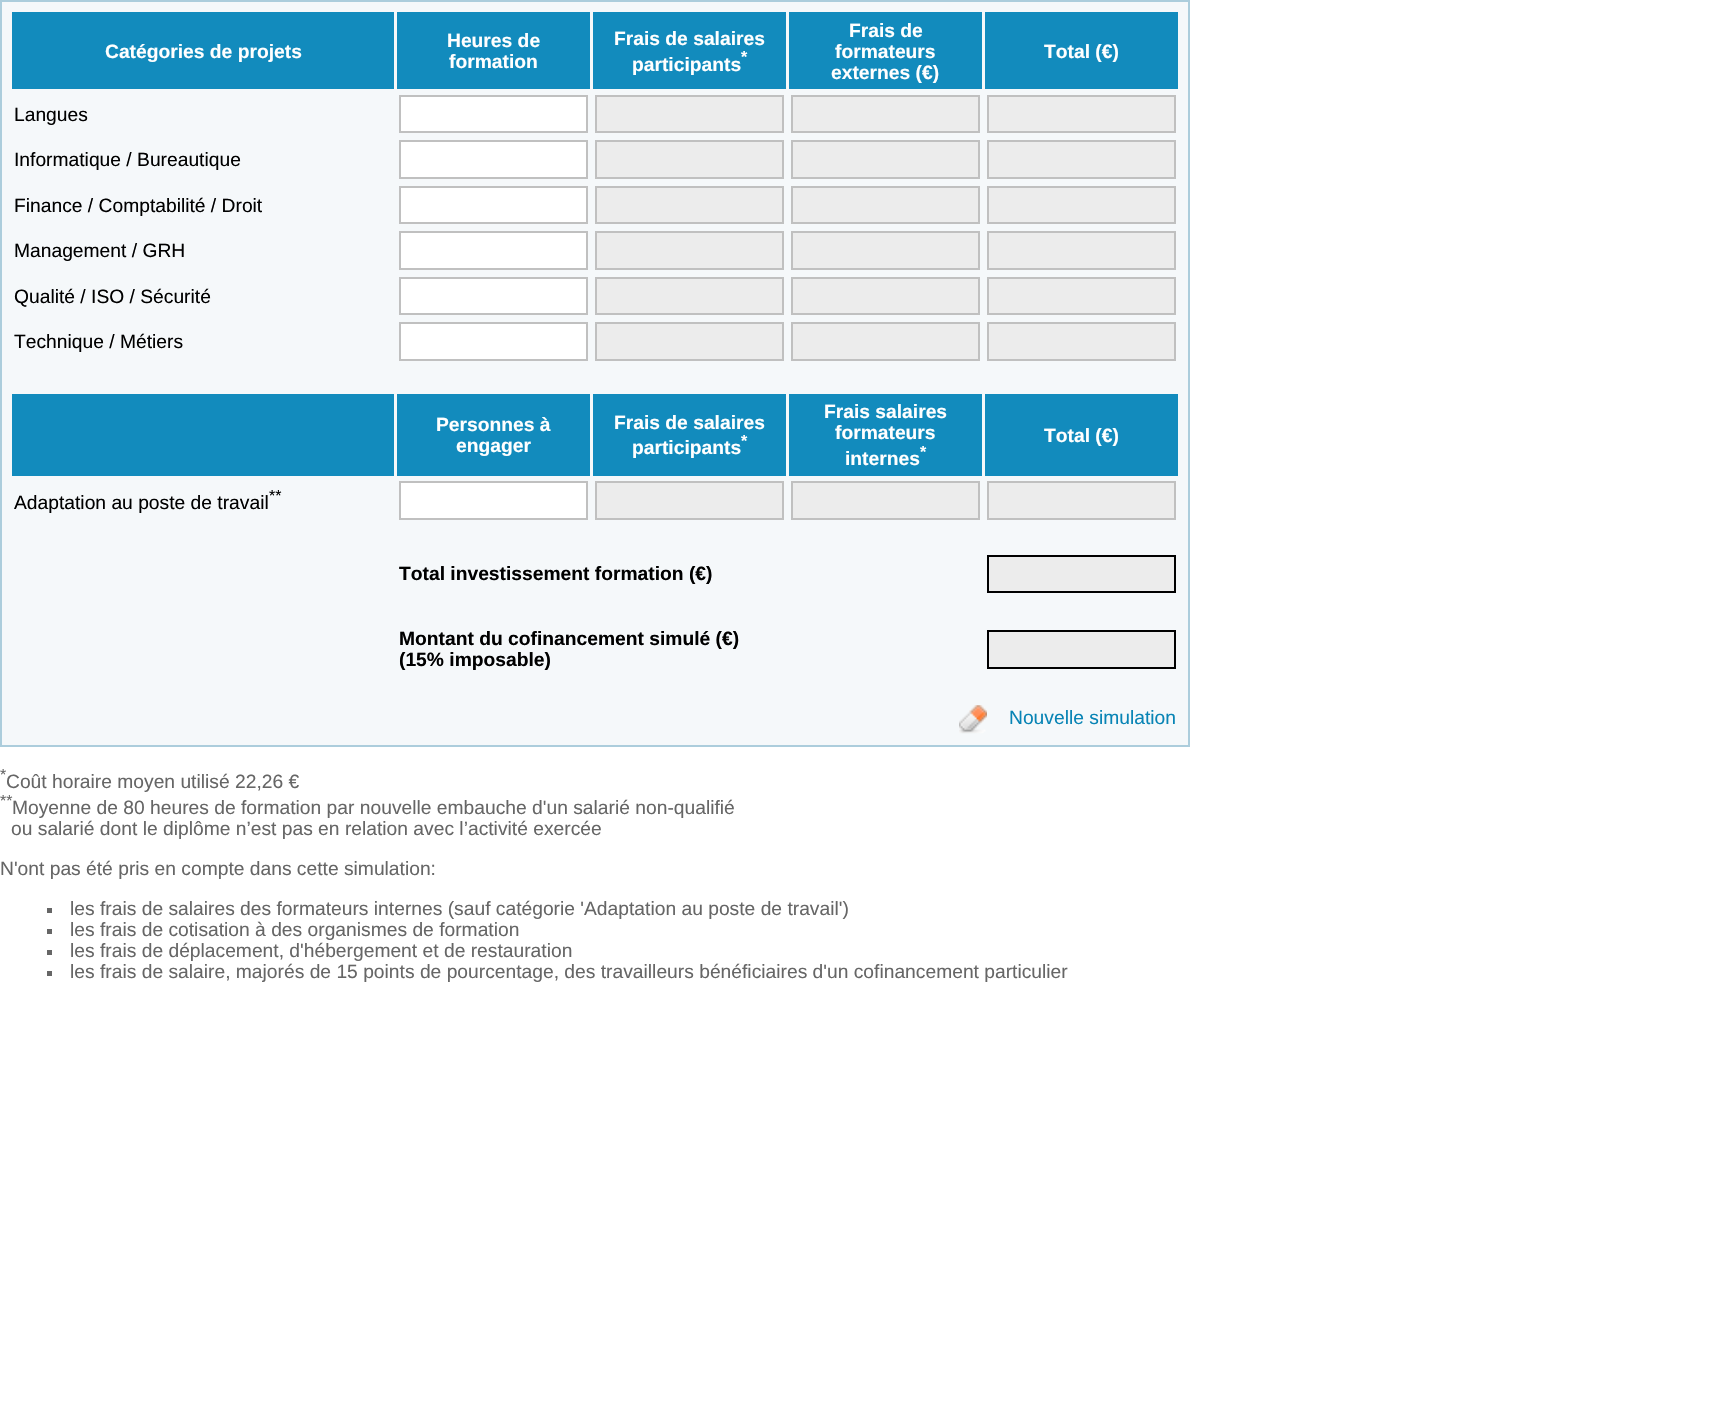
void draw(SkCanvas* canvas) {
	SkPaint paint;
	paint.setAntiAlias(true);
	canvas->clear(0xffffffff);
	paint.setColor(0xfff5f8fa);
	canvas->drawRect(SkRect::MakeXYWH(1, 1, 1188, 745), paint);
	paint.setStroke(true);
	paint.setStrokeWidth(2);
	paint.setColor(0xffaccddc);
	canvas->drawRect(SkRect::MakeXYWH(1, 1, 1188, 745), paint);
	paint.setStroke(false);
	paint.setColor(0xff128bbd);
	canvas->drawRect(SkRect::MakeXYWH(12, 12, 382, 77), paint);
	SkFont f1(fontMgr->matchFamilyStyle("Liberation Sans", SkFontStyle::Bold()), 19.25);
	f1.setSubpixel(true);
	paint.setColor(0xffffffff);
	canvas->drawString("Catégories de projets", 105, 58, f1, paint);
	paint.setColor(0xff128bbd);
	canvas->drawRect(SkRect::MakeXYWH(397, 12, 193, 77), paint);
	paint.setColor(0xffffffff);
	canvas->drawString("Heures de", 447, 47, f1, paint);
	canvas->drawString("formation", 449, 68, f1, paint);
	paint.setColor(0xff128bbd);
	canvas->drawRect(SkRect::MakeXYWH(593, 12, 193, 77), paint);
	paint.setColor(0xffffffff);
	canvas->drawString("Frais de salaires", 614, 45, f1, paint);
	SkFont f2(fontMgr->matchFamilyStyle("Liberation Sans", SkFontStyle::Bold()), 16);
	f2.setSubpixel(true);
	canvas->drawString("*", 741, 62, f2, paint);
	canvas->drawString("participants", 632, 71, f1, paint);
	paint.setColor(0xff128bbd);
	canvas->drawRect(SkRect::MakeXYWH(789, 12, 193, 77), paint);
	paint.setColor(0xffffffff);
	canvas->drawString("Frais de", 849, 37, f1, paint);
	canvas->drawString("formateurs", 835, 58, f1, paint);
	canvas->drawString("externes (€)", 831, 79, f1, paint);
	paint.setColor(0xff128bbd);
	canvas->drawRect(SkRect::MakeXYWH(985, 12, 193, 77), paint);
	paint.setColor(0xffffffff);
	canvas->drawString("Total (€)", 1044, 58, f1, paint);
	SkFont f3(fontMgr->matchFamilyStyle("Liberation Sans", SkFontStyle::Normal()), 19.25);
	f3.setSubpixel(true);
	paint.setColor(0xff000000);
	canvas->drawString("Langues", 14, 121, f3, paint);
	paint.setColor(0xffffffff);
	canvas->drawRect(SkRect::MakeXYWH(400, 96, 187, 36), paint);
	paint.setStroke(true);
	paint.setColor(0xffc0c0c0);
	canvas->drawRect(SkRect::MakeXYWH(400, 96, 187, 36), paint);
	paint.setStroke(false);
	paint.setColor(0xffececec);
	canvas->drawRect(SkRect::MakeXYWH(596, 96, 187, 36), paint);
	paint.setStroke(true);
	paint.setColor(0xffc0c0c0);
	canvas->drawRect(SkRect::MakeXYWH(596, 96, 187, 36), paint);
	paint.setStroke(false);
	paint.setColor(0xffececec);
	canvas->drawRect(SkRect::MakeXYWH(792, 96, 187, 36), paint);
	paint.setStroke(true);
	paint.setColor(0xffc0c0c0);
	canvas->drawRect(SkRect::MakeXYWH(792, 96, 187, 36), paint);
	paint.setStroke(false);
	paint.setColor(0xffececec);
	canvas->drawRect(SkRect::MakeXYWH(988, 96, 187, 36), paint);
	paint.setStroke(true);
	paint.setColor(0xffc0c0c0);
	canvas->drawRect(SkRect::MakeXYWH(988, 96, 187, 36), paint);
	paint.setStroke(false);
	paint.setColor(0xff000000);
	canvas->drawString("Informatique / Bureautique", 14, 166, f3, paint);
	paint.setColor(0xffffffff);
	canvas->drawRect(SkRect::MakeXYWH(400, 141, 187, 37), paint);
	paint.setStroke(true);
	paint.setColor(0xffc0c0c0);
	canvas->drawRect(SkRect::MakeXYWH(400, 141, 187, 37), paint);
	paint.setStroke(false);
	paint.setColor(0xffececec);
	canvas->drawRect(SkRect::MakeXYWH(596, 141, 187, 37), paint);
	paint.setStroke(true);
	paint.setColor(0xffc0c0c0);
	canvas->drawRect(SkRect::MakeXYWH(596, 141, 187, 37), paint);
	paint.setStroke(false);
	paint.setColor(0xffececec);
	canvas->drawRect(SkRect::MakeXYWH(792, 141, 187, 37), paint);
	paint.setStroke(true);
	paint.setColor(0xffc0c0c0);
	canvas->drawRect(SkRect::MakeXYWH(792, 141, 187, 37), paint);
	paint.setStroke(false);
	paint.setColor(0xffececec);
	canvas->drawRect(SkRect::MakeXYWH(988, 141, 187, 37), paint);
	paint.setStroke(true);
	paint.setColor(0xffc0c0c0);
	canvas->drawRect(SkRect::MakeXYWH(988, 141, 187, 37), paint);
	paint.setStroke(false);
	paint.setColor(0xff000000);
	canvas->drawString("Finance / Comptabilité / Droit", 14, 212, f3, paint);
	paint.setColor(0xffffffff);
	canvas->drawRect(SkRect::MakeXYWH(400, 187, 187, 36), paint);
	paint.setStroke(true);
	paint.setColor(0xffc0c0c0);
	canvas->drawRect(SkRect::MakeXYWH(400, 187, 187, 36), paint);
	paint.setStroke(false);
	paint.setColor(0xffececec);
	canvas->drawRect(SkRect::MakeXYWH(596, 187, 187, 36), paint);
	paint.setStroke(true);
	paint.setColor(0xffc0c0c0);
	canvas->drawRect(SkRect::MakeXYWH(596, 187, 187, 36), paint);
	paint.setStroke(false);
	paint.setColor(0xffececec);
	canvas->drawRect(SkRect::MakeXYWH(792, 187, 187, 36), paint);
	paint.setStroke(true);
	paint.setColor(0xffc0c0c0);
	canvas->drawRect(SkRect::MakeXYWH(792, 187, 187, 36), paint);
	paint.setStroke(false);
	paint.setColor(0xffececec);
	canvas->drawRect(SkRect::MakeXYWH(988, 187, 187, 36), paint);
	paint.setStroke(true);
	paint.setColor(0xffc0c0c0);
	canvas->drawRect(SkRect::MakeXYWH(988, 187, 187, 36), paint);
	paint.setStroke(false);
	paint.setColor(0xff000000);
	canvas->drawString("Management / GRH", 14, 257, f3, paint);
	paint.setColor(0xffffffff);
	canvas->drawRect(SkRect::MakeXYWH(400, 232, 187, 37), paint);
	paint.setStroke(true);
	paint.setColor(0xffc0c0c0);
	canvas->drawRect(SkRect::MakeXYWH(400, 232, 187, 37), paint);
	paint.setStroke(false);
	paint.setColor(0xffececec);
	canvas->drawRect(SkRect::MakeXYWH(596, 232, 187, 37), paint);
	paint.setStroke(true);
	paint.setColor(0xffc0c0c0);
	canvas->drawRect(SkRect::MakeXYWH(596, 232, 187, 37), paint);
	paint.setStroke(false);
	paint.setColor(0xffececec);
	canvas->drawRect(SkRect::MakeXYWH(792, 232, 187, 37), paint);
	paint.setStroke(true);
	paint.setColor(0xffc0c0c0);
	canvas->drawRect(SkRect::MakeXYWH(792, 232, 187, 37), paint);
	paint.setStroke(false);
	paint.setColor(0xffececec);
	canvas->drawRect(SkRect::MakeXYWH(988, 232, 187, 37), paint);
	paint.setStroke(true);
	paint.setColor(0xffc0c0c0);
	canvas->drawRect(SkRect::MakeXYWH(988, 232, 187, 37), paint);
	paint.setStroke(false);
	paint.setColor(0xff000000);
	canvas->drawString("Qualité / ISO / Sécurité", 14, 303, f3, paint);
	paint.setColor(0xffffffff);
	canvas->drawRect(SkRect::MakeXYWH(400, 278, 187, 36), paint);
	paint.setStroke(true);
	paint.setColor(0xffc0c0c0);
	canvas->drawRect(SkRect::MakeXYWH(400, 278, 187, 36), paint);
	paint.setStroke(false);
	paint.setColor(0xffececec);
	canvas->drawRect(SkRect::MakeXYWH(596, 278, 187, 36), paint);
	paint.setStroke(true);
	paint.setColor(0xffc0c0c0);
	canvas->drawRect(SkRect::MakeXYWH(596, 278, 187, 36), paint);
	paint.setStroke(false);
	paint.setColor(0xffececec);
	canvas->drawRect(SkRect::MakeXYWH(792, 278, 187, 36), paint);
	paint.setStroke(true);
	paint.setColor(0xffc0c0c0);
	canvas->drawRect(SkRect::MakeXYWH(792, 278, 187, 36), paint);
	paint.setStroke(false);
	paint.setColor(0xffececec);
	canvas->drawRect(SkRect::MakeXYWH(988, 278, 187, 36), paint);
	paint.setStroke(true);
	paint.setColor(0xffc0c0c0);
	canvas->drawRect(SkRect::MakeXYWH(988, 278, 187, 36), paint);
	paint.setStroke(false);
	paint.setColor(0xff000000);
	canvas->drawString("Technique / Métiers", 14, 348, f3, paint);
	paint.setColor(0xffffffff);
	canvas->drawRect(SkRect::MakeXYWH(400, 323, 187, 37), paint);
	paint.setStroke(true);
	paint.setColor(0xffc0c0c0);
	canvas->drawRect(SkRect::MakeXYWH(400, 323, 187, 37), paint);
	paint.setStroke(false);
	paint.setColor(0xffececec);
	canvas->drawRect(SkRect::MakeXYWH(596, 323, 187, 37), paint);
	paint.setStroke(true);
	paint.setColor(0xffc0c0c0);
	canvas->drawRect(SkRect::MakeXYWH(596, 323, 187, 37), paint);
	paint.setStroke(false);
	paint.setColor(0xffececec);
	canvas->drawRect(SkRect::MakeXYWH(792, 323, 187, 37), paint);
	paint.setStroke(true);
	paint.setColor(0xffc0c0c0);
	canvas->drawRect(SkRect::MakeXYWH(792, 323, 187, 37), paint);
	paint.setStroke(false);
	paint.setColor(0xffececec);
	canvas->drawRect(SkRect::MakeXYWH(988, 323, 187, 37), paint);
	paint.setStroke(true);
	paint.setColor(0xffc0c0c0);
	canvas->drawRect(SkRect::MakeXYWH(988, 323, 187, 37), paint);
	paint.setStroke(false);
	paint.setColor(0xff128bbd);
	canvas->drawRect(SkRect::MakeXYWH(12, 394, 382, 82), paint);
	canvas->drawRect(SkRect::MakeXYWH(397, 394, 193, 82), paint);
	paint.setColor(0xffffffff);
	canvas->drawString("Personnes à", 436, 431, f1, paint);
	canvas->drawString("engager", 456, 452, f1, paint);
	paint.setColor(0xff128bbd);
	canvas->drawRect(SkRect::MakeXYWH(593, 394, 193, 82), paint);
	paint.setColor(0xffffffff);
	canvas->drawString("Frais de salaires", 614, 429, f1, paint);
	canvas->drawString("*", 741, 446, f2, paint);
	canvas->drawString("participants", 632, 454, f1, paint);
	paint.setColor(0xff128bbd);
	canvas->drawRect(SkRect::MakeXYWH(789, 394, 193, 82), paint);
	paint.setColor(0xffffffff);
	canvas->drawString("Frais salaires", 824, 418, f1, paint);
	canvas->drawString("formateurs", 835, 439, f1, paint);
	canvas->drawString("*", 920, 457, f2, paint);
	canvas->drawString("internes", 845, 465, f1, paint);
	paint.setColor(0xff128bbd);
	canvas->drawRect(SkRect::MakeXYWH(985, 394, 193, 82), paint);
	paint.setColor(0xffffffff);
	canvas->drawString("Total (€)", 1044, 442, f1, paint);
	SkFont f4(fontMgr->matchFamilyStyle("Liberation Sans", SkFontStyle::Normal()), 16);
	f4.setSubpixel(true);
	paint.setColor(0xff000000);
	canvas->drawString("**", 269, 501, f4, paint);
	canvas->drawString("Adaptation au poste de travail", 14, 509, f3, paint);
	paint.setColor(0xffffffff);
	canvas->drawRect(SkRect::MakeXYWH(400, 482, 187, 37), paint);
	paint.setStroke(true);
	paint.setColor(0xffc0c0c0);
	canvas->drawRect(SkRect::MakeXYWH(400, 482, 187, 37), paint);
	paint.setStroke(false);
	paint.setColor(0xffececec);
	canvas->drawRect(SkRect::MakeXYWH(596, 482, 187, 37), paint);
	paint.setStroke(true);
	paint.setColor(0xffc0c0c0);
	canvas->drawRect(SkRect::MakeXYWH(596, 482, 187, 37), paint);
	paint.setStroke(false);
	paint.setColor(0xffececec);
	canvas->drawRect(SkRect::MakeXYWH(792, 482, 187, 37), paint);
	paint.setStroke(true);
	paint.setColor(0xffc0c0c0);
	canvas->drawRect(SkRect::MakeXYWH(792, 482, 187, 37), paint);
	paint.setStroke(false);
	paint.setColor(0xffececec);
	canvas->drawRect(SkRect::MakeXYWH(988, 482, 187, 37), paint);
	paint.setStroke(true);
	paint.setColor(0xffc0c0c0);
	canvas->drawRect(SkRect::MakeXYWH(988, 482, 187, 37), paint);
	paint.setStroke(false);
	paint.setColor(0xff000000);
	canvas->drawString("Total investissement formation (€)", 399, 580, f1, paint);
	paint.setColor(0xffececec);
	canvas->drawRect(SkRect::MakeXYWH(988, 556, 187, 36), paint);
	paint.setStroke(true);
	paint.setColor(0xff000000);
	canvas->drawRect(SkRect::MakeXYWH(988, 556, 187, 36), paint);
	paint.setStroke(false);
	canvas->drawString("Montant du cofinancement simulé (€)", 399, 645, f1, paint);
	canvas->drawString("(15% imposable)", 399, 666, f1, paint);
	paint.setColor(0xffececec);
	canvas->drawRect(SkRect::MakeXYWH(988, 631, 187, 37), paint);
	paint.setStroke(true);
	paint.setColor(0xff000000);
	canvas->drawRect(SkRect::MakeXYWH(988, 631, 187, 37), paint);
	canvas->drawImageRect(SkImages::DeferredFromEncodedData(SkData::MakeFromFileName("img1.png")), SkRect::MakeXYWH(959, 705, 28, 29), SkSamplingOptions());
	paint.setStroke(false);
	paint.setColor(0xff0884b5);
	canvas->drawString("Nouvelle simulation", 1009, 724, f3, paint);
	paint.setColor(0xff666666);
	canvas->drawString("*", 0, 780, f4, paint);
	canvas->drawString("Coût horaire moyen utilisé 22,26 €", 6, 788, f3, paint);
	canvas->drawString("**", 0, 806, f4, paint);
	canvas->drawString("Moyenne de 80 heures de formation par nouvelle embauche d'un salarié non-qualifié", 12, 814, f3, paint);
	canvas->drawString("ou salarié dont le diplôme n’est pas en relation avec l’activité exercée", 11, 835, f3, paint);
	canvas->drawString("N'ont pas été pris en compte dans cette simulation:", 0, 875, f3, paint);
	canvas->drawRect(SkRect::MakeXYWH(47, 908, 5, 5), paint);
	canvas->drawString("les frais de salaires des formateurs internes (sauf catégorie 'Adaptation au poste de travail')", 70, 915, f3, paint);
	canvas->drawRect(SkRect::MakeXYWH(47, 929, 5, 5), paint);
	canvas->drawString("les frais de cotisation à des organismes de formation", 70, 936, f3, paint);
	canvas->drawRect(SkRect::MakeXYWH(47, 950, 5, 5), paint);
	canvas->drawString("les frais de déplacement, d'hébergement et de restauration", 70, 957, f3, paint);
	canvas->drawRect(SkRect::MakeXYWH(47, 971, 5, 5), paint);
	canvas->drawString("les frais de salaire, majorés de 15 points de pourcentage, des travailleurs bénéficiaires d'un cofinancement particulier", 70, 978, f3, paint);
}
